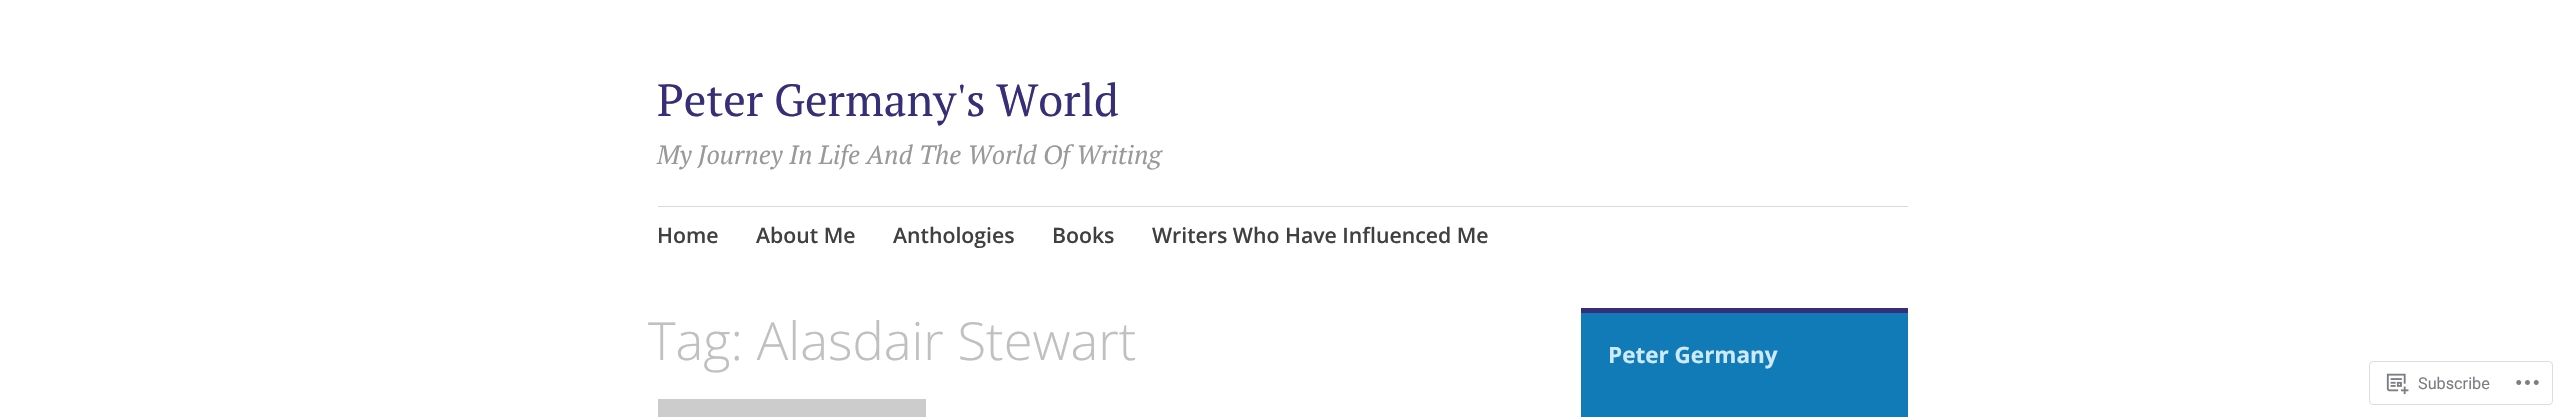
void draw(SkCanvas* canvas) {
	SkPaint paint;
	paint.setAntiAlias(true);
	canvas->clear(0xffffffff);
	SkFont f1(fontMgr->matchFamilyStyle("PT Serif", SkFontStyle::Normal()), 45);
	f1.setSubpixel(true);
	paint.setColor(0xff362e77);
	canvas->drawString("Peter Germany's World", 657, 116, f1, paint);
	SkFont f2(fontMgr->matchFamilyStyle("PT Serif", SkFontStyle::Italic()), 26.25);
	f2.setSubpixel(true);
	paint.setColor(0xff999999);
	canvas->drawString("My Journey In Life And The World Of Writing", 657, 164, f2, paint);
	paint.setColor(0xffd9d9d9);
	canvas->drawRect(SkRect::MakeXYWH(658, 206, 1250, 1), paint);
	SkFont f3(fontMgr->matchFamilyStyle("Open Sans", SkFontStyle(600, SkFontStyle::kNormal_Width, SkFontStyle::kUpright_Slant)), 21.25);
	f3.setSubpixel(true);
	paint.setColor(0xff404040);
	canvas->drawString("Home", 657, 243, f3, paint);
	canvas->drawString("About Me", 756, 243, f3, paint);
	canvas->drawString("Anthologies", 893, 243, f3, paint);
	canvas->drawString("Books", 1052, 243, f3, paint);
	canvas->drawString("Writers Who Have Influenced Me", 1152, 243, f3, paint);
	SkFont f4(fontMgr->matchFamilyStyle("Open Sans", SkFontStyle(300, SkFontStyle::kNormal_Width, SkFontStyle::kUpright_Slant)), 52.5);
	f4.setSubpixel(true);
	paint.setColor(0xffc0c0c0);
	canvas->drawString("Tag: Alasdair Stewart", 648, 360, f4, paint);
	paint.setColor(0xffcccccc);
	canvas->drawRect(SkRect::MakeXYWH(658, 399, 268, 18), paint);
	paint.setColor(0xff117bb8);
	canvas->drawRect(SkRect::MakeXYWH(1581, 313, 327, 104), paint);
	paint.setColor(0xff362e77);
	canvas->drawRect(SkRect::MakeXYWH(1581, 308, 327, 5), paint);
	SkFont f5(fontMgr->matchFamilyStyle("Open Sans", SkFontStyle::Bold()), 22.5);
	f5.setSubpixel(true);
	paint.setColor(0xffceeafa);
	canvas->drawString("Peter Germany", 1608, 363, f5, paint);
	paint.setStroke(true);
	paint.setStrokeWidth(1);
	paint.setColor(0xffdddddf);
	canvas->drawRoundRect(SkRect::MakeXYWH(2369.5, 361.5, 183, 43), 3.5, 3.5, paint);
	canvas->drawImageRect(SkImages::DeferredFromEncodedData(SkData::MakeFromFileName("img1.png")), SkRect::MakeXYWH(2386, 373, 23, 22), SkSamplingOptions());
	SkFont f6(fontMgr->matchFamilyStyle("Roboto", SkFontStyle::Normal()), 16.25);
	f6.setSubpixel(true);
	paint.setStroke(false);
	paint.setColor(0xff7b7f85);
	canvas->drawString("Subscribe", 2418, 389, f6, paint);
	canvas->drawImageRect(SkImages::DeferredFromEncodedData(SkData::MakeFromFileName("img2.png")), SkRect::MakeXYWH(2516, 380, 23, 5), SkSamplingOptions());
}
